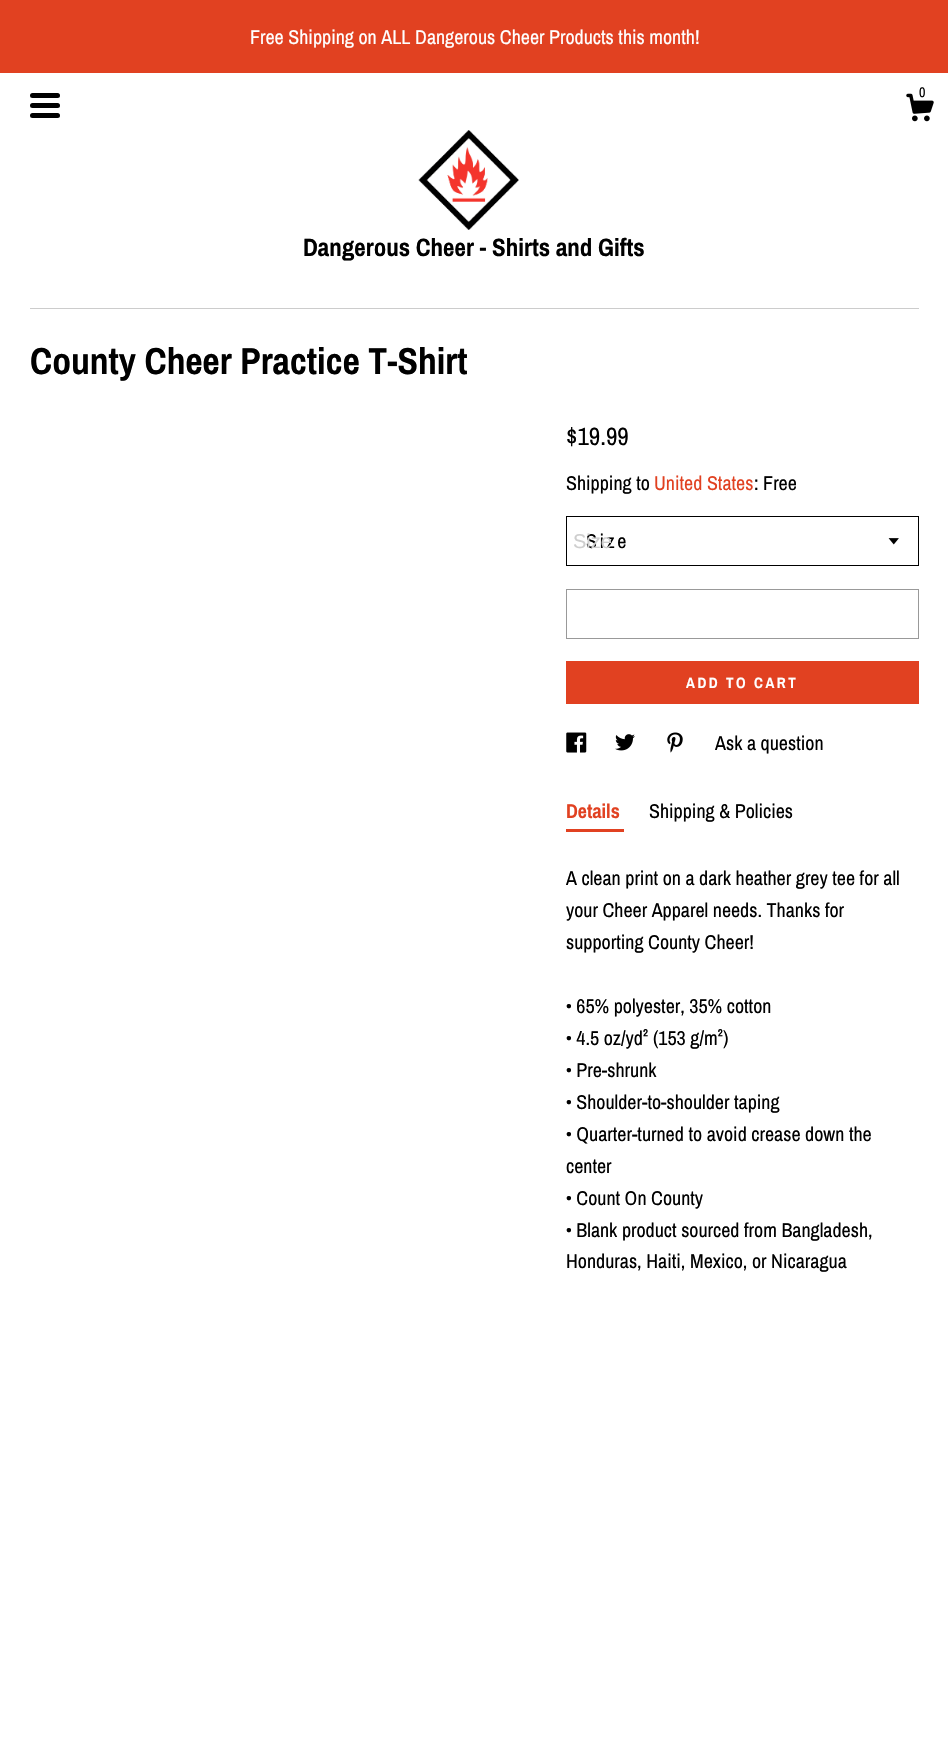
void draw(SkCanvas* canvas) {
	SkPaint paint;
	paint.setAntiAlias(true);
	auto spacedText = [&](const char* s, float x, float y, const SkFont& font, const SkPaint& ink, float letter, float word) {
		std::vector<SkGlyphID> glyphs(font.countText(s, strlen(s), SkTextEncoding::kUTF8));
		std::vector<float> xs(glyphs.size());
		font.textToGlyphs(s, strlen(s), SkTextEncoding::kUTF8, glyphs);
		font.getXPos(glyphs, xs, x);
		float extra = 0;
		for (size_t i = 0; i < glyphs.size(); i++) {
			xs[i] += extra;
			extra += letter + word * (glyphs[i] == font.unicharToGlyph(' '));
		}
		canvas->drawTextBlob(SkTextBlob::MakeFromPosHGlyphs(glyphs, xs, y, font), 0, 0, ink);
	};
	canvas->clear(0xffffffff);
	paint.setColor(0xffe14121);
	canvas->drawRect(SkRect::MakeXYWH(0, 0, 948, 73), paint);
	SkFont f1(fontMgr->matchFamilyStyle("Archivo Narrow", SkFontStyle::Normal()), 20);
	f1.setSubpixel(true);
	paint.setColor(0xffffffff);
	canvas->drawString("Free Shipping on ALL Dangerous Cheer Products this month!", 250, 44, f1, paint);
	paint.setColor(0xff000000);
	canvas->drawRoundRect(SkRect::MakeXYWH(30, 93, 30, 5), 2.5, 2.5, paint);
	canvas->drawRoundRect(SkRect::MakeXYWH(30, 103, 30, 5), 2.5, 2.5, paint);
	canvas->drawRoundRect(SkRect::MakeXYWH(30, 113, 30, 5), 2.5, 2.5, paint);
	canvas->drawImageRect(SkImages::DeferredFromEncodedData(SkData::MakeFromFileName("img1.png")), SkRect::MakeXYWH(906, 93, 28, 29), SkSamplingOptions());
	SkFont f2(fontMgr->matchFamilyStyle("Archivo Narrow", SkFontStyle::Normal()), 14);
	f2.setSubpixel(true);
	canvas->drawString("0", 919, 97, f2, paint);
	canvas->drawImageRect(SkImages::DeferredFromEncodedData(SkData::MakeFromFileName("img2.png")), SkRect::MakeXYWH(418, 130, 101, 100), SkSamplingOptions());
	SkFont f3(fontMgr->matchFamilyStyle("Archivo Narrow", SkFontStyle::Bold()), 25);
	f3.setSubpixel(true);
	canvas->drawString("Dangerous Cheer - Shirts and Gifts", 303, 256, f3, paint);
	paint.setColor(0xffcccccc);
	canvas->drawRect(SkRect::MakeXYWH(30, 308, 889, 1), paint);
	SkFont f4(fontMgr->matchFamilyStyle("Archivo Narrow", SkFontStyle::Bold()), 37.5);
	f4.setSubpixel(true);
	paint.setColor(0xff000000);
	canvas->drawString("County Cheer Practice T-Shirt", 30, 374, f4, paint);
	SkFont f5(fontMgr->matchFamilyStyle("Archivo Narrow", SkFontStyle::Normal()), 25);
	f5.setSubpixel(true);
	canvas->drawString("$19.99", 566, 445, f5, paint);
	canvas->drawString("Shipping to", 566, 490, f1, paint);
	paint.setColor(0xffe14121);
	canvas->drawString("United States", 654, 490, f1, paint);
	paint.setColor(0xff000000);
	canvas->drawString(": Free", 754, 490, f1, paint);
	paint.setStroke(true);
	paint.setStrokeWidth(1);
	canvas->drawRect(SkRect::MakeXYWH(566.5, 516.5, 352, 49), paint);
	paint.setStroke(false);
	spacedText("Size", 586, 548, f1, paint, 2.5, 0);
	SkFont f6(fontMgr->matchFamilyStyle("Liberation Sans", SkFontStyle::Normal()), 20);
	f6.setSubpixel(true);
	paint.setColor(0xffcecece);
	canvas->drawString("Size", 573, 548, f6, paint);
	canvas->drawImageRect(SkImages::DeferredFromEncodedData(SkData::MakeFromFileName("img3.png")), SkRect::MakeXYWH(888, 538, 11, 7), SkSamplingOptions());
	paint.setStroke(true);
	paint.setColor(0xff999999);
	canvas->drawRect(SkRect::MakeXYWH(566.5, 589.5, 352, 49), paint);
	paint.setStroke(false);
	paint.setColor(0xffe14121);
	canvas->drawRect(SkRect::MakeXYWH(566, 661, 353, 43), paint);
	SkFont f7(fontMgr->matchFamilyStyle("Archivo Narrow", SkFontStyle::Bold()), 15);
	f7.setSubpixel(true);
	paint.setColor(0xffffffff);
	spacedText("ADD TO CART", 686, 688, f7, paint, 2.5, 0);
	canvas->drawImageRect(SkImages::DeferredFromEncodedData(SkData::MakeFromFileName("img4.png")), SkRect::MakeXYWH(566, 732, 21, 21), SkSamplingOptions());
	canvas->drawImageRect(SkImages::DeferredFromEncodedData(SkData::MakeFromFileName("img5.png")), SkRect::MakeXYWH(615, 734, 20, 17), SkSamplingOptions());
	canvas->drawImageRect(SkImages::DeferredFromEncodedData(SkData::MakeFromFileName("img6.png")), SkRect::MakeXYWH(667, 732, 16, 21), SkSamplingOptions());
	paint.setColor(0xff000000);
	canvas->drawString("Ask a question", 715, 750, f1, paint);
	SkFont f8(fontMgr->matchFamilyStyle("Archivo Narrow", SkFontStyle::Bold()), 20);
	f8.setSubpixel(true);
	paint.setColor(0xffe14121);
	canvas->drawString("Details", 566, 818, f8, paint);
	canvas->drawRect(SkRect::MakeXYWH(566, 829, 58, 3), paint);
	paint.setColor(0xff000000);
	canvas->drawString("Shipping & Policies", 649, 818, f1, paint);
	canvas->drawString("A clean print on a dark heather grey tee for all", 566, 885, f1, paint);
	canvas->drawString("your Cheer Apparel needs. Thanks for", 566, 917, f1, paint);
	canvas->drawString("supporting County Cheer!", 566, 949, f1, paint);
	canvas->drawString("• 65% polyester, 35% cotton", 566, 1013, f1, paint);
	canvas->drawString("• 4.5 oz/yd² (153 g/m²)", 566, 1045, f1, paint);
	canvas->drawString("• Pre-shrunk", 566, 1077, f1, paint);
	canvas->drawString("• Shoulder-to-shoulder taping", 566, 1109, f1, paint);
	canvas->drawString("• Quarter-turned to avoid crease down the", 566, 1141, f1, paint);
	canvas->drawString("center", 566, 1173, f1, paint);
	canvas->drawString("• Count On County", 566, 1205, f1, paint);
	canvas->drawString("• Blank product sourced from Bangladesh,", 566, 1237, f1, paint);
	canvas->drawString("Honduras, Haiti, Mexico, or Nicaragua", 566, 1268, f1, paint);
}
